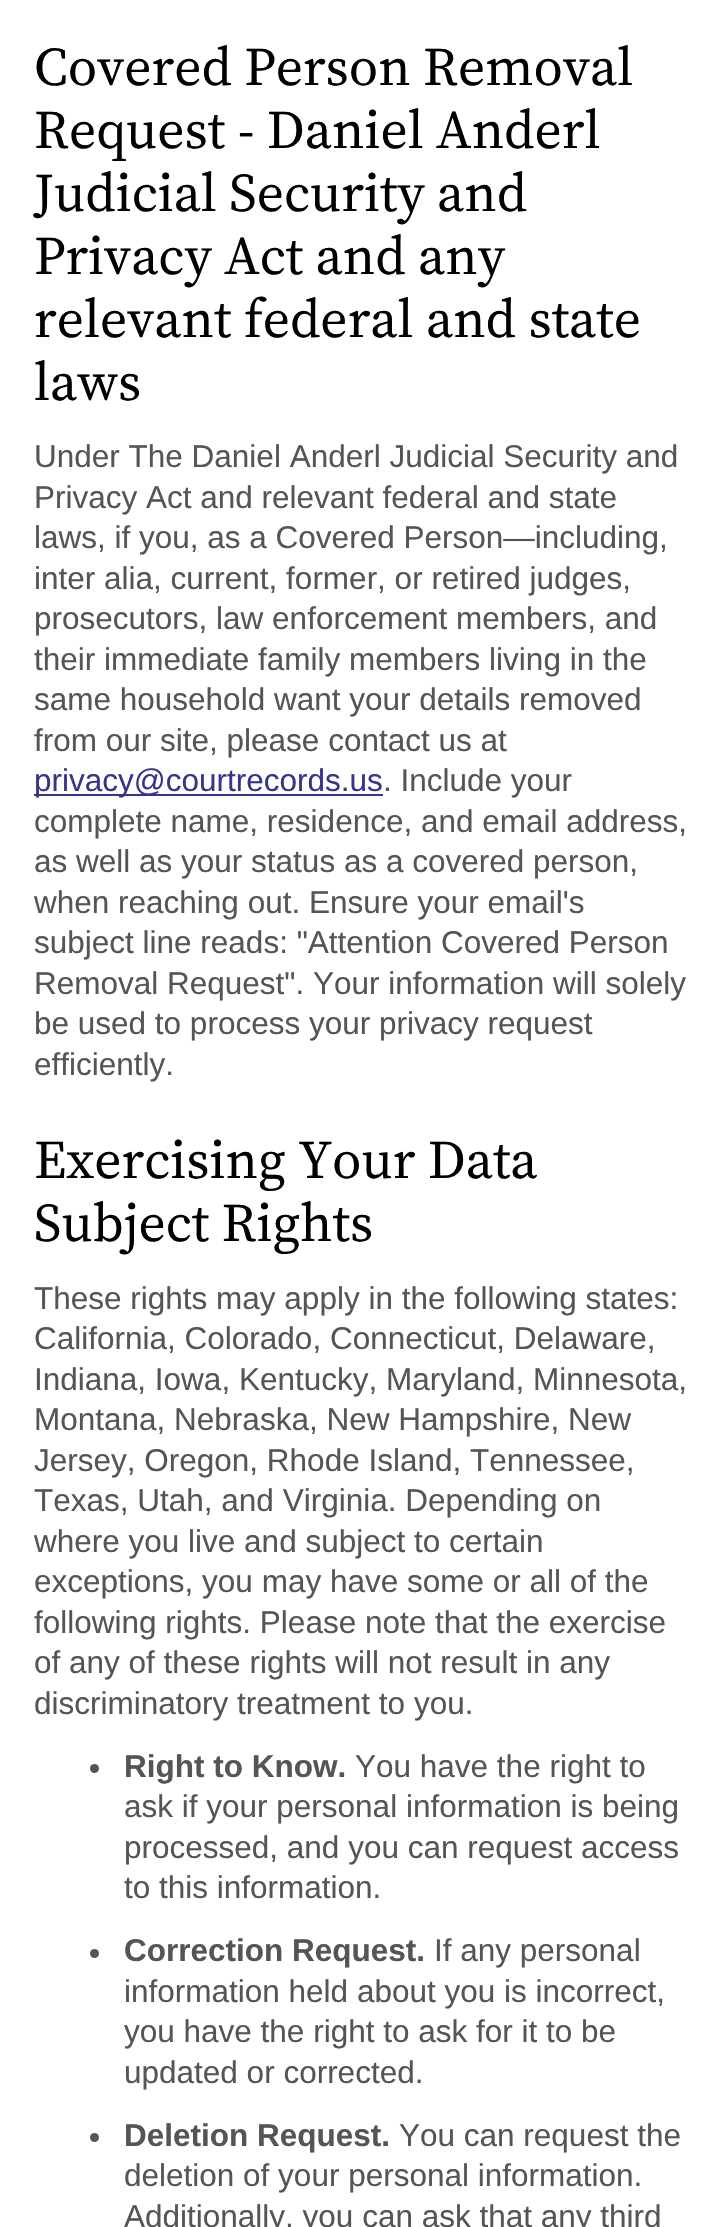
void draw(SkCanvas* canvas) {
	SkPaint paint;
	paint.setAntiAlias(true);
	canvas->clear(0xffffffff);
	SkFont f1(fontMgr->matchFamilyStyle("Source Serif 4", SkFontStyle::Normal()), 54);
	f1.setSubpixel(true);
	paint.setColor(0xff000000);
	canvas->drawString("Covered Person Removal", 34, 85, f1, paint);
	canvas->drawString("Request - Daniel Anderl", 34, 148, f1, paint);
	canvas->drawString("Judicial Security and", 34, 211, f1, paint);
	canvas->drawString("Privacy Act and any", 34, 274, f1, paint);
	canvas->drawString("relevant federal and state", 34, 337, f1, paint);
	canvas->drawString("laws", 34, 400, f1, paint);
	SkFont f2(fontMgr->matchFamilyStyle("Liberation Sans", SkFontStyle::Normal()), 31.5);
	f2.setSubpixel(true);
	paint.setColor(0xff555555);
	canvas->drawString("Under The Daniel Anderl Judicial Security and", 34, 467, f2, paint);
	canvas->drawString("Privacy Act and relevant federal and state", 34, 508, f2, paint);
	canvas->drawString("laws, if you, as a Covered Person—including,", 34, 548, f2, paint);
	canvas->drawString("inter alia, current, former, or retired judges,", 34, 589, f2, paint);
	canvas->drawString("prosecutors, law enforcement members, and", 34, 629, f2, paint);
	canvas->drawString("their immediate family members living in the", 34, 670, f2, paint);
	canvas->drawString("same household want your details removed", 34, 710, f2, paint);
	canvas->drawString("from our site, please contact us at", 34, 751, f2, paint);
	paint.setColor(0xff35358c);
	canvas->drawRect(SkRect::MakeXYWH(34, 794, 349, 2), paint);
	canvas->drawString("privacy@courtrecords.us", 34, 791, f2, paint);
	paint.setColor(0xff555555);
	canvas->drawString(". Include your", 383, 791, f2, paint);
	canvas->drawString("complete name, residence, and email address,", 34, 832, f2, paint);
	canvas->drawString("as well as your status as a covered person,", 34, 872, f2, paint);
	canvas->drawString("when reaching out. Ensure your email's", 34, 913, f2, paint);
	canvas->drawString("subject line reads: \"Attention Covered Person", 34, 953, f2, paint);
	canvas->drawString("Removal Request\". Your information will solely", 34, 994, f2, paint);
	canvas->drawString("be used to process your privacy request", 34, 1034, f2, paint);
	canvas->drawString("efficiently.", 34, 1075, f2, paint);
	paint.setColor(0xff000000);
	canvas->drawString("Exercising Your Data", 34, 1178, f1, paint);
	canvas->drawString("Subject Rights", 34, 1241, f1, paint);
	paint.setColor(0xff555555);
	canvas->drawString("These rights may apply in the following states:", 34, 1309, f2, paint);
	canvas->drawString("California, Colorado, Connecticut, Delaware,", 34, 1349, f2, paint);
	canvas->drawString("Indiana, Iowa, Kentucky, Maryland, Minnesota,", 34, 1390, f2, paint);
	canvas->drawString("Montana, Nebraska, New Hampshire, New", 34, 1430, f2, paint);
	canvas->drawString("Jersey, Oregon, Rhode Island, Tennessee,", 34, 1471, f2, paint);
	canvas->drawString("Texas, Utah, and Virginia. Depending on", 34, 1511, f2, paint);
	canvas->drawString("where you live and subject to certain", 34, 1552, f2, paint);
	canvas->drawString("exceptions, you may have some or all of the", 34, 1592, f2, paint);
	canvas->drawString("following rights. Please note that the exercise", 34, 1633, f2, paint);
	canvas->drawString("of any of these rights will not result in any", 34, 1673, f2, paint);
	canvas->drawString("discriminatory treatment to you.", 34, 1714, f2, paint);
	canvas->drawCircle(94.5, 1768.5, 4.5, paint);
	SkFont f3(fontMgr->matchFamilyStyle("Liberation Sans", SkFontStyle::Bold()), 31.5);
	f3.setSubpixel(true);
	canvas->drawString("Right to Know.", 124, 1777, f3, paint);
	canvas->drawString("You have the right to", 355, 1777, f2, paint);
	canvas->drawString("ask if your personal information is being", 124, 1817, f2, paint);
	canvas->drawString("processed, and you can request access", 124, 1858, f2, paint);
	canvas->drawString("to this information.", 124, 1898, f2, paint);
	canvas->drawCircle(94.5, 1953.5, 4.5, paint);
	canvas->drawString("Correction Request.", 124, 1961, f3, paint);
	canvas->drawString("If any personal", 434, 1961, f2, paint);
	canvas->drawString("information held about you is incorrect,", 124, 2002, f2, paint);
	canvas->drawString("you have the right to ask for it to be", 124, 2042, f2, paint);
	canvas->drawString("updated or corrected.", 124, 2083, f2, paint);
	canvas->drawCircle(94.5, 2137.5, 4.5, paint);
	canvas->drawString("Deletion Request.", 124, 2146, f3, paint);
	canvas->drawString("You can request the", 399, 2146, f2, paint);
	canvas->drawString("deletion of your personal information.", 124, 2186, f2, paint);
	canvas->drawString("Additionally, you can ask that any third", 124, 2227, f2, paint);
}
